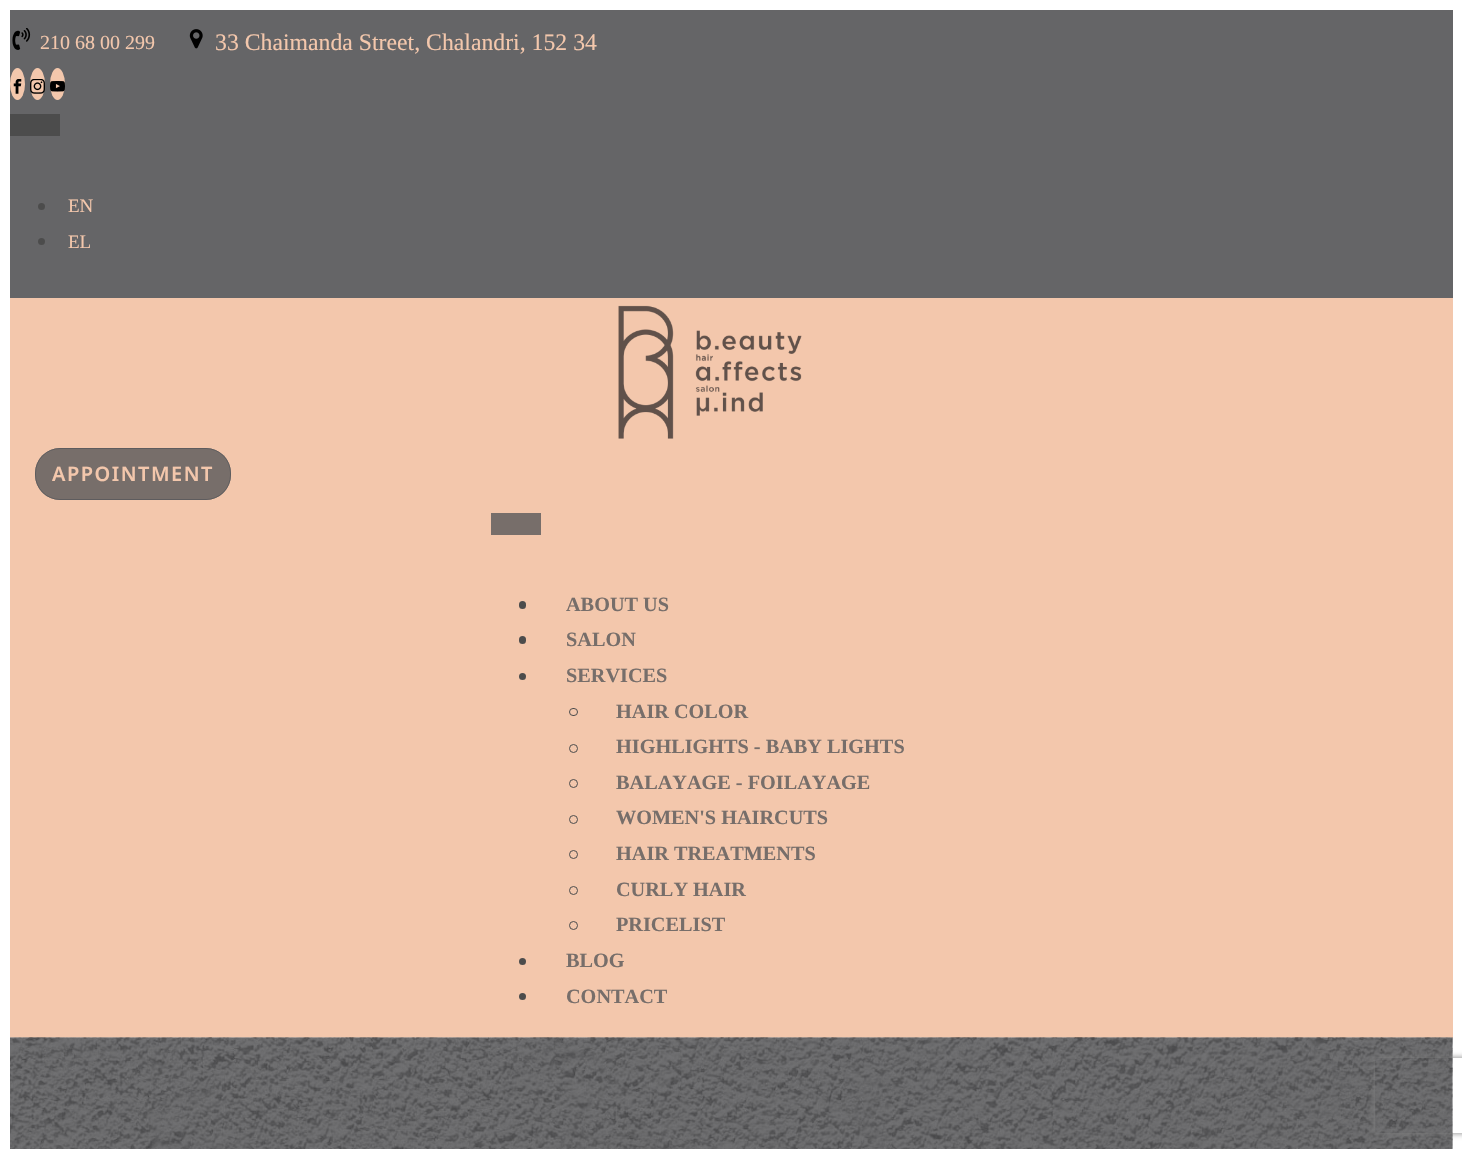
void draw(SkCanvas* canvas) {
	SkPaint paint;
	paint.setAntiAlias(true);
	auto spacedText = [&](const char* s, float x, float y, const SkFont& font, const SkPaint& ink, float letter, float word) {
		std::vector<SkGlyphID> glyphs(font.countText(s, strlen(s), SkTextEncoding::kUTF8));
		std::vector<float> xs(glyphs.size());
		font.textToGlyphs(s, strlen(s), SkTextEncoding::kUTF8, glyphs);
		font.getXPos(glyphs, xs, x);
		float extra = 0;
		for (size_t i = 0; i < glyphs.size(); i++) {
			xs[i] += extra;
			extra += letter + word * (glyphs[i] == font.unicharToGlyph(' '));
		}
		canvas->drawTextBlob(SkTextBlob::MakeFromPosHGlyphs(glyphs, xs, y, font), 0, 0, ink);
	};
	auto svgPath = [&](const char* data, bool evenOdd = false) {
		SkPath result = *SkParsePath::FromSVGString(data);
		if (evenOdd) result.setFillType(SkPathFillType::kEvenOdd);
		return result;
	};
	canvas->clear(0xffffffff);
	paint.setColor(0xff656567);
	canvas->drawRect(SkRect::MakeXYWH(10, 10, 1443, 288), paint);
	canvas->drawImageRect(SkImages::DeferredFromEncodedData(SkData::MakeFromFileName("img1.png")), SkRect::MakeXYWH(12, 28, 19, 22), SkSamplingOptions());
	SkFont f1(fontMgr->matchFamilyStyle("Liberation Serif", SkFontStyle::Normal()), 20);
	f1.setSubpixel(true);
	paint.setColor(0xfff3c7ac);
	canvas->drawString("210 68 00 299", 40, 49, f1, paint);
	canvas->drawImageRect(SkImages::DeferredFromEncodedData(SkData::MakeFromFileName("img2.png")), SkRect::MakeXYWH(189, 29, 14, 20), SkSamplingOptions());
	SkFont f2(fontMgr->matchFamilyStyle("Liberation Serif", SkFontStyle::Normal()), 23.75);
	f2.setSubpixel(true);
	canvas->drawString("33 Chaimanda Street, Chalandri, 152 34", 215, 50, f2, paint);
	canvas->drawOval(SkRect::MakeXYWH(10, 68, 15, 32), paint);
	canvas->drawOval(SkRect::MakeXYWH(30, 68, 15, 32), paint);
	canvas->drawOval(SkRect::MakeXYWH(50, 68, 15, 32), paint);
	canvas->drawImageRect(SkImages::DeferredFromEncodedData(SkData::MakeFromFileName("img3.png")), SkRect::MakeXYWH(13, 79, 9, 15), SkSamplingOptions());
	canvas->drawImageRect(SkImages::DeferredFromEncodedData(SkData::MakeFromFileName("img4.png")), SkRect::MakeXYWH(30, 79, 15, 15), SkSamplingOptions());
	canvas->drawImageRect(SkImages::DeferredFromEncodedData(SkData::MakeFromFileName("img5.png")), SkRect::MakeXYWH(50, 81, 15, 11), SkSamplingOptions());
	paint.setColor(0xff4c4c4c);
	canvas->drawRect(SkRect::MakeXYWH(10, 114, 50, 22), paint);
	canvas->drawCircle(41.5, 206.5, 3.5, paint);
	SkFont f3(fontMgr->matchFamilyStyle("Liberation Serif", SkFontStyle::Normal()), 19);
	f3.setSubpixel(true);
	paint.setColor(0xfff3c7ac);
	canvas->drawString("EN", 68, 212, f3, paint);
	paint.setColor(0xff4c4c4c);
	canvas->drawCircle(41.5, 241.5, 3.5, paint);
	paint.setColor(0xfff3c7ac);
	canvas->drawString("EL", 68, 248, f3, paint);
	canvas->drawRect(SkRect::MakeXYWH(10, 298, 1443, 740), paint);
	canvas->drawImageRect(SkImages::DeferredFromEncodedData(SkData::MakeFromFileName("img6.png")), SkRect::MakeXYWH(618, 305, 184, 134), SkSamplingOptions());
	paint.setColor(0xff776e6a);
	canvas->drawRoundRect(SkRect::MakeXYWH(35, 448, 196, 52), 25, 25, paint);
	paint.setStroke(true);
	paint.setStrokeWidth(1);
	paint.setColor(0xcc58585a);
	canvas->drawRoundRect(SkRect::MakeXYWH(35.5, 448.5, 195, 51), 24.5, 24.5, paint);
	SkFont f4(fontMgr->matchFamilyStyle("Noto Sans", SkFontStyle(600, SkFontStyle::kNormal_Width, SkFontStyle::kUpright_Slant)), 20);
	f4.setSubpixel(true);
	paint.setStroke(false);
	paint.setColor(0xfff3c7ac);
	spacedText("APPOINTMENT", 52, 481, f4, paint, 1.5, 0);
	paint.setColor(0xff776e6a);
	canvas->drawRect(SkRect::MakeXYWH(491, 513, 50, 22), paint);
	paint.setColor(0xff4c4c4c);
	canvas->drawRoundRect(SkRect::MakeXYWH(519, 601, 7, 8), 3.5, 3.5, paint);
	SkFont f5(fontMgr->matchFamilyStyle("Liberation Serif", SkFontStyle::Bold()), 20.25);
	f5.setSubpixel(true);
	paint.setColor(0xff776e6a);
	canvas->drawString("ABOUT US", 566, 611, f5, paint);
	paint.setColor(0xff4c4c4c);
	canvas->drawRoundRect(SkRect::MakeXYWH(519, 636, 7, 8), 3.5, 3.5, paint);
	paint.setColor(0xff776e6a);
	canvas->drawString("SALON", 566, 646, f5, paint);
	paint.setColor(0xff4c4c4c);
	canvas->drawCircle(522.5, 676.5, 3.5, paint);
	paint.setColor(0xff776e6a);
	canvas->drawString("SERVICES", 566, 682, f5, paint);
	paint.setStroke(true);
	paint.setColor(0xff4c4c4c);
	canvas->drawRoundRect(SkRect::MakeXYWH(569.5, 708.5, 8, 7), 3.5, 3.5, paint);
	paint.setStroke(false);
	paint.setColor(0xff776e6a);
	canvas->drawString("HAIR COLOR", 616, 718, f5, paint);
	paint.setStroke(true);
	paint.setColor(0xff4c4c4c);
	canvas->drawCircle(573.5, 748.5, 4, paint);
	paint.setStroke(false);
	paint.setColor(0xff776e6a);
	canvas->drawString("HIGHLIGHTS - BABY LIGHTS", 616, 753, f5, paint);
	paint.setStroke(true);
	paint.setColor(0xff4c4c4c);
	canvas->drawCircle(573.5, 783.5, 4, paint);
	paint.setStroke(false);
	paint.setColor(0xff776e6a);
	canvas->drawString("BALAYAGE - FOILAYAGE", 616, 789, f5, paint);
	paint.setStroke(true);
	paint.setColor(0xff4c4c4c);
	canvas->drawCircle(573.5, 819.5, 4, paint);
	paint.setStroke(false);
	paint.setColor(0xff776e6a);
	canvas->drawString("WOMEN'S HAIRCUTS", 616, 824, f5, paint);
	paint.setStroke(true);
	paint.setColor(0xff4c4c4c);
	canvas->drawCircle(573.5, 854.5, 4, paint);
	paint.setStroke(false);
	paint.setColor(0xff776e6a);
	canvas->drawString("HAIR TREATMENTS", 616, 860, f5, paint);
	paint.setStroke(true);
	paint.setColor(0xff4c4c4c);
	canvas->drawCircle(573.5, 890.5, 4, paint);
	paint.setStroke(false);
	paint.setColor(0xff776e6a);
	canvas->drawString("CURLY HAIR", 616, 896, f5, paint);
	paint.setStroke(true);
	paint.setColor(0xff4c4c4c);
	canvas->drawCircle(573.5, 925.5, 4, paint);
	paint.setStroke(false);
	paint.setColor(0xff776e6a);
	canvas->drawString("PRICELIST", 616, 931, f5, paint);
	paint.setColor(0xff4c4c4c);
	canvas->drawCircle(522.5, 961.5, 3.5, paint);
	paint.setColor(0xff776e6a);
	canvas->drawString("BLOG", 566, 967, f5, paint);
	paint.setColor(0xff4c4c4c);
	canvas->drawCircle(522.5, 996.5, 3.5, paint);
	paint.setColor(0xff776e6a);
	canvas->drawString("CONTACT", 566, 1003, f5, paint);
	canvas->drawImageRect(SkImages::DeferredFromEncodedData(SkData::MakeFromFileName("img7.png")), SkRect::MakeXYWH(10, 1037, 1443, 112), SkSamplingOptions());
	canvas->save();
	canvas->clipPath(svgPath("M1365 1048H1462V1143H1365ZM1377.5 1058H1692.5C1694 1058 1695 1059 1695 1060.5V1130.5C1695 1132 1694 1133 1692.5 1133H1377.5C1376 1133 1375 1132 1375 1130.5V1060.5C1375 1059 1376 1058 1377.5 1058Z", true), true);
	paint.setColor(0xff808080);
	paint.setMaskFilter(SkMaskFilter::MakeBlur(kNormal_SkBlurStyle, 3));
	canvas->drawRoundRect(SkRect::MakeXYWH(1375, 1058, 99, 75), 2.5, 2.5, paint);
	paint.setMaskFilter(nullptr);
	canvas->restore();
}
